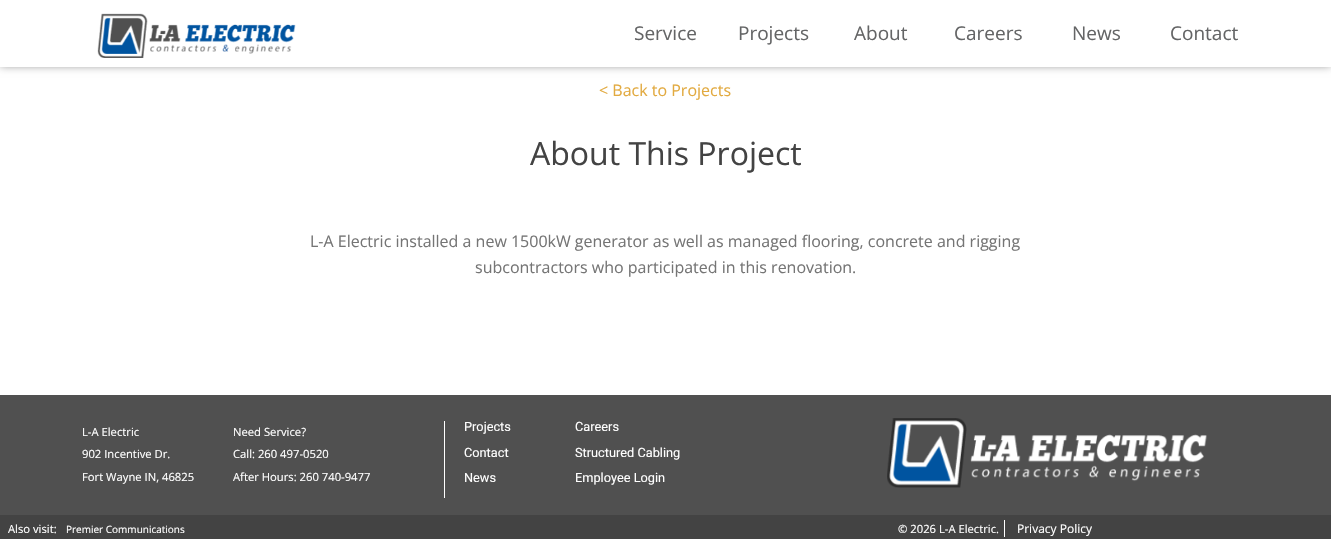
void draw(SkCanvas* canvas) {
	SkPaint paint;
	paint.setAntiAlias(true);
	canvas->clear(0xffffffff);
	paint.setColor(0xff808080);
	paint.setMaskFilter(SkMaskFilter::MakeBlur(kNormal_SkBlurStyle, 4.5));
	canvas->drawRect(SkRect::MakeXYWH(0, -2, 1331, 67), paint);
	paint.setMaskFilter(nullptr);
	paint.setColor(0xffffffff);
	canvas->drawRect(SkRect::MakeXYWH(0, 0, 1331, 67), paint);
	canvas->drawImageRect(SkImages::DeferredFromEncodedData(SkData::MakeFromFileName("img1.png")), SkRect::MakeXYWH(97, 13, 199, 45), SkSamplingOptions());
	SkFont f1(fontMgr->matchFamilyStyle("Open Sans", SkFontStyle::Normal()), 19);
	f1.setSubpixel(true);
	paint.setColor(0xff646566);
	canvas->drawString("Service", 634, 40, f1, paint);
	canvas->drawString("Projects", 738, 40, f1, paint);
	canvas->drawString("About", 854, 40, f1, paint);
	canvas->drawString("Careers", 954, 40, f1, paint);
	canvas->drawString("News", 1072, 40, f1, paint);
	canvas->drawString("Contact", 1170, 40, f1, paint);
	SkFont f2(fontMgr->matchFamilyStyle("Open Sans", SkFontStyle::Normal()), 16);
	f2.setSubpixel(true);
	paint.setColor(0xffe2aa40);
	canvas->drawString("< Back to Projects", 599, 96, f2, paint);
	SkFont f3(fontMgr->matchFamilyStyle("Open Sans", SkFontStyle::Normal()), 32);
	f3.setSubpixel(true);
	paint.setColor(0xff434343);
	canvas->drawString("About This Project", 530, 165, f3, paint);
	paint.setColor(0xff757575);
	canvas->drawString("L-A Electric installed a new 1500kW generator as well as managed flooring, concrete and rigging", 310, 247, f2, paint);
	canvas->drawString("subcontractors who participated in this renovation.", 475, 273, f2, paint);
	paint.setColor(0xff505050);
	canvas->drawRect(SkRect::MakeXYWH(0, 395, 1331, 120), paint);
	SkFont f4(fontMgr->matchFamilyStyle("Open Sans", SkFontStyle::Normal()), 11.25);
	f4.setSubpixel(true);
	paint.setColor(0xffffffff);
	canvas->drawString("L-A Electric", 82, 436, f4, paint);
	canvas->drawString("902 Incentive Dr.", 82, 458, f4, paint);
	canvas->drawString("Fort Wayne IN, 46825", 82, 481, f4, paint);
	canvas->drawString("Need Service?", 233, 436, f4, paint);
	canvas->drawString("Call: 260 497-0520", 233, 458, f4, paint);
	canvas->drawString("After Hours: 260 740-9477", 233, 481, f4, paint);
	canvas->drawRect(SkRect::MakeXYWH(444, 421, 1, 77), paint);
	SkFont f5(fontMgr->matchFamilyStyle("Roboto", SkFontStyle::Normal()), 12.75);
	f5.setSubpixel(true);
	canvas->drawString("Projects", 464, 431, f5, paint);
	canvas->drawString("Contact", 464, 457, f5, paint);
	canvas->drawString("News", 464, 482, f5, paint);
	canvas->drawString("Careers", 575, 431, f5, paint);
	canvas->drawString("Structured Cabling", 575, 457, f5, paint);
	canvas->drawString("Employee Login", 575, 482, f5, paint);
	canvas->drawImageRect(SkImages::DeferredFromEncodedData(SkData::MakeFromFileName("img2.png")), SkRect::MakeXYWH(887, 418, 320, 70), SkSamplingOptions());
	paint.setColor(0xff434343);
	canvas->drawRect(SkRect::MakeXYWH(0, 515, 1331, 24), paint);
	paint.setColor(0xffffffff);
	canvas->drawString("Also visit:", 8, 533, f4, paint);
	SkFont f6(fontMgr->matchFamilyStyle("Open Sans", SkFontStyle::Normal()), 10);
	f6.setSubpixel(true);
	canvas->drawString("Premier Communications", 66, 533, f6, paint);
	canvas->drawString("© 2026 L-A Electric.", 898, 533, f4, paint);
	SkFont f7(fontMgr->matchFamilyStyle("Open Sans", SkFontStyle::Normal()), 12);
	f7.setSubpixel(true);
	canvas->drawString("Privacy Policy", 1017, 533, f7, paint);
	canvas->drawRect(SkRect::MakeXYWH(1004, 520, 1, 17), paint);
}
